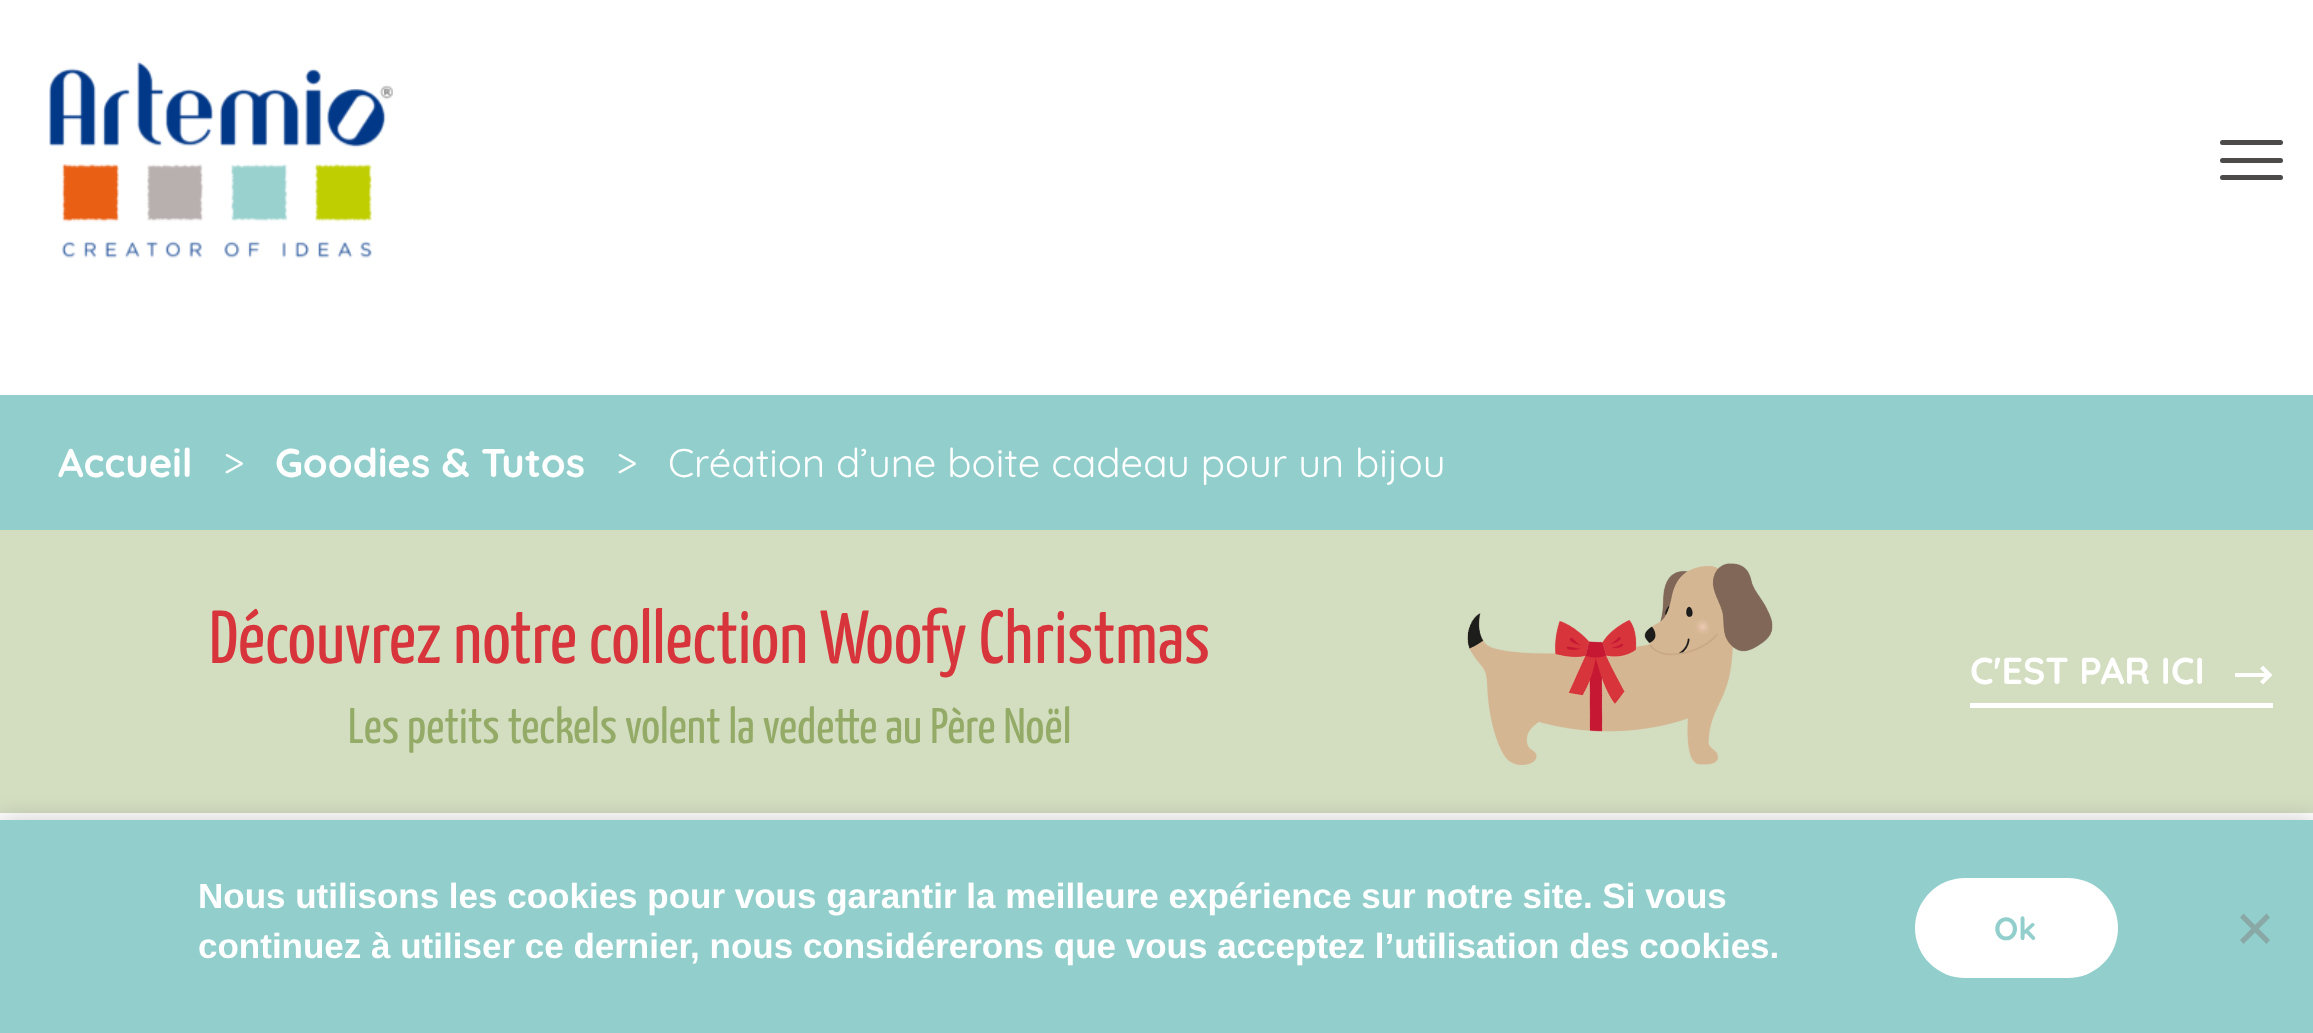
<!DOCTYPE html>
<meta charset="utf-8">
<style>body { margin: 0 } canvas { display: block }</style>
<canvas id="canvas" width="2313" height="1033"></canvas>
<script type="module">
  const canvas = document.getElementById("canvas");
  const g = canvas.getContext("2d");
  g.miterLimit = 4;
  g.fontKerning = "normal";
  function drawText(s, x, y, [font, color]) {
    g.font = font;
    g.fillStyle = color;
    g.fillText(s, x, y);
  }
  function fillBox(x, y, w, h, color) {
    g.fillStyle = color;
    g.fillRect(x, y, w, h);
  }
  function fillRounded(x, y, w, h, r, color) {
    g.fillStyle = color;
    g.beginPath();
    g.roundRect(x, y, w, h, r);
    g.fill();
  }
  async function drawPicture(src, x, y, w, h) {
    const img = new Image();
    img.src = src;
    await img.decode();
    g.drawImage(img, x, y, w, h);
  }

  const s1 = ["bold 40px Quicksand", "#FFFFFF"];
  const s2 = ["40px Quicksand", "#FFFFFF"];
  const s3 = ["75px Yanone Kaffeesatz", "#D7343B"];
  const s4 = ["50px Yanone Kaffeesatz", "#94AB68"];
  const s5 = ["bold 37.5px Quicksand", "#FFFFFF"];
  const s6 = ["bold 35px Liberation Sans", "#FFFFFF"];
  const s7 = ["bold 32px Quicksand", "#92CFCC"];

  fillBox(0, 0, 2313, 1033, "#FFFFFF");
  await drawPicture("pic1.png", 49, 61, 344, 197);
  fillRounded(2220, 158, 63, 5, 2.5, "#4C4B49");
  fillRounded(2220, 140, 63, 5, 2.5, "#4C4B49");
  fillRounded(2220, 175, 63, 5, 2.5, "#4C4B49");
  fillBox(0, 395, 2313, 135, "#92CFCC");
  drawText("Accueil", 58, 477, s1);
  drawText(">", 223, 477, s2);
  drawText("Goodies & Tutos", 275, 477, s1);
  drawText(">", 616, 477, s2);
  drawText("Création d’une boite cadeau pour un bijou", 668, 477, s2);
  fillBox(0, 530, 2313, 283, "#D3DDC0");
  await drawPicture("pic2.png", 1467, 563, 306, 202);
  drawText("Découvrez notre collection Woofy Christmas", 209, 663, s3);
  drawText("Les petits teckels volent la vedette au Père Noël", 348, 743, s4);
  drawText("C'EST PAR ICI", 1970, 684, s5);
  g.beginPath();
  g.moveTo(2263, 665.5);
  g.lineTo(2260, 668.5);
  g.lineTo(2264.5, 673);
  g.lineTo(2235, 673);
  g.lineTo(2235, 677);
  g.lineTo(2264.5, 677);
  g.lineTo(2260, 681.5);
  g.lineTo(2263, 684.5);
  g.lineTo(2272.5, 675);
  g.closePath();
  g.fill();
  fillBox(1970, 703, 303, 5, "#FFFFFF");
  g.fillStyle = "rgba(0, 0, 0, 0.2)";
  g.filter = "blur(12.5px)";
  g.beginPath();
  g.rect(0, 820, 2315, 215);
  g.fill();
  g.filter = "none";
  fillBox(0, 820, 2313, 213, "#92CFCC");
  drawText("Nous utilisons les cookies pour vous garantir la meilleure expérience sur notre site. Si vous", 198, 908, s6);
  drawText("continuez à utiliser ce dernier, nous considérerons que vous acceptez l’utilisation des cookies.", 198, 958, s6);
  fillRounded(1915, 878, 203, 100, 50, "#FFFFFF");
  drawText("Ok", 1994, 940, s7);
  g.fillStyle = "#89A8A6";
  g.beginPath();
  g.moveTo(2266.5, 913.5);
  g.lineTo(2270, 917.5);
  g.lineTo(2243.5, 944);
  g.lineTo(2240, 940);
  g.closePath();
  g.fill();
  g.beginPath();
  g.moveTo(2240, 917.5);
  g.lineTo(2243.5, 913.5);
  g.lineTo(2270, 940);
  g.lineTo(2266.5, 944);
  g.closePath();
  g.fill();
</script>
